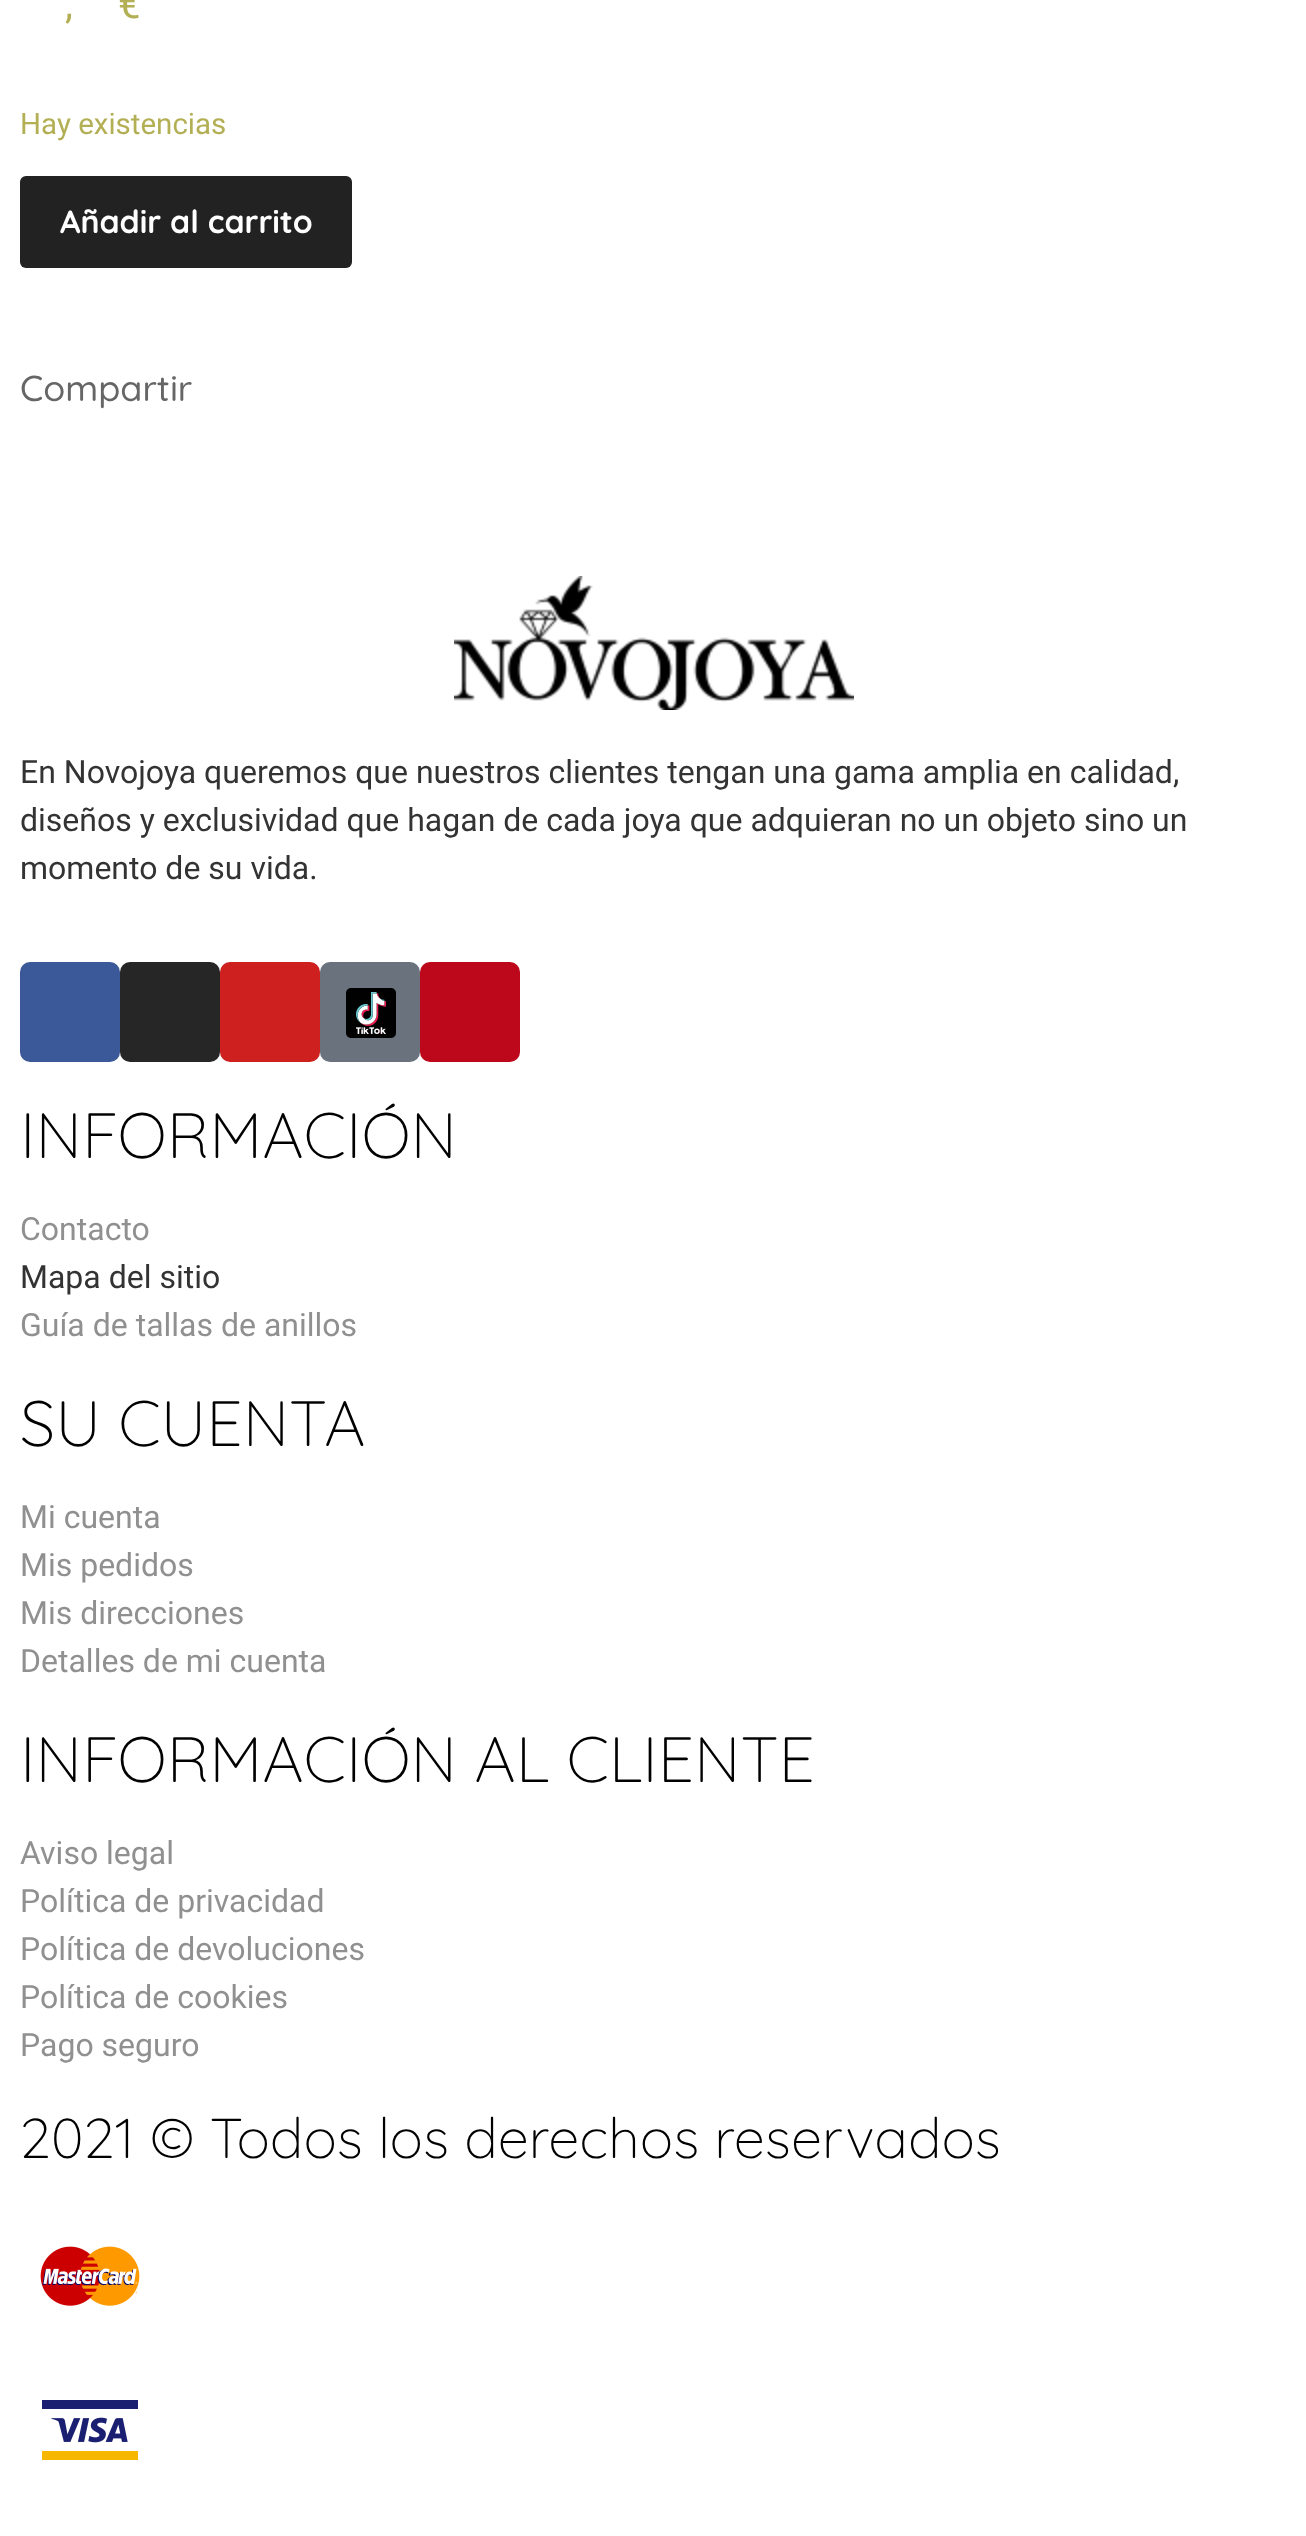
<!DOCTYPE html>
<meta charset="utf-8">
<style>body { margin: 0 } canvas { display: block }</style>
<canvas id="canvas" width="1306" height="2536"></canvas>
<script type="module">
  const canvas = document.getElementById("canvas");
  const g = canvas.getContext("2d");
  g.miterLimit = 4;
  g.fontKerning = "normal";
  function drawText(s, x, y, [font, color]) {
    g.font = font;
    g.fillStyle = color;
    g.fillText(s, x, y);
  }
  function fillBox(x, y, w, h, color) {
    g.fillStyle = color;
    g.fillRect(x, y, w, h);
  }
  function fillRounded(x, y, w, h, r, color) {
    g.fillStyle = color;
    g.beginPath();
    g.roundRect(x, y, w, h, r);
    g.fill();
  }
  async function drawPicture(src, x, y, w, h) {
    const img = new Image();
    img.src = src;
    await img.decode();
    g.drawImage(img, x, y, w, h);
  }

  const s1 = ["40px Roboto", "#B3AF54"];
  const s2 = ["29.5px Roboto", "#B3AF54"];
  const s3 = ["bold 32px Quicksand", "#FFFFFF"];
  const s4 = ["500 36px Quicksand", "#666666"];
  const s5 = ["32px Roboto", "#333333"];
  const s6 = ["300 64px Quicksand", "#000000"];
  const s7 = ["32px Roboto", "#909090"];
  const s8 = ["300 56px Quicksand", "#000000"];

  fillBox(0, 0, 1306, 2536, "#FFFFFF");
  drawText(",", 65, 18, s1);
  drawText("€", 118, 18, s1);
  drawText("Hay existencias", 20, 134, s2);
  fillRounded(20, 176, 332, 92, 6, "#222222");
  drawText("Añadir al carrito", 60, 233, s3);
  drawText("Compartir", 20, 401, s4);
  await drawPicture("pic1.png", 454, 576, 400, 134);
  drawText("En Novojoya queremos que nuestros clientes tengan una gama amplia en calidad,", 20, 783, s5);
  drawText("diseños y exclusividad que hagan de cada joya que adquieran no un objeto sino un", 20, 831, s5);
  drawText("momento de su vida.", 20, 879, s5);
  fillRounded(20, 962, 100, 100, 10, "#3B5998");
  fillRounded(120, 962, 100, 100, 10, "#262626");
  fillRounded(220, 962, 100, 100, 10, "#CD201F");
  fillRounded(320, 962, 100, 100, 10, "#69727D");
  await drawPicture("pic2.png", 346, 988, 50, 50);
  fillRounded(420, 962, 100, 100, 10, "#BD081C");
  drawText("INFORMACIÓN", 20, 1158, s6);
  drawText("Contacto", 20, 1240, s7);
  drawText("Mapa del sitio", 20, 1288, s5);
  drawText("Guía de tallas de anillos", 20, 1336, s7);
  drawText("SU CUENTA", 20, 1446, s6);
  drawText("Mi cuenta", 20, 1528, s7);
  drawText("Mis pedidos", 20, 1576, s7);
  drawText("Mis direcciones", 20, 1624, s7);
  drawText("Detalles de mi cuenta", 20, 1672, s7);
  drawText("INFORMACIÓN AL CLIENTE", 20, 1782, s6);
  drawText("Aviso legal", 20, 1864, s7);
  drawText("Política de privacidad", 20, 1912, s7);
  drawText("Política de devoluciones", 20, 1960, s7);
  drawText("Política de cookies", 20, 2008, s7);
  drawText("Pago seguro", 20, 2056, s7);
  drawText("2021 © Todos los derechos reservados", 20, 2158, s8);
  await drawPicture("pic3.png", 40, 2246, 100, 60);
  await drawPicture("pic4.png", 42, 2400, 96, 60);
</script>
